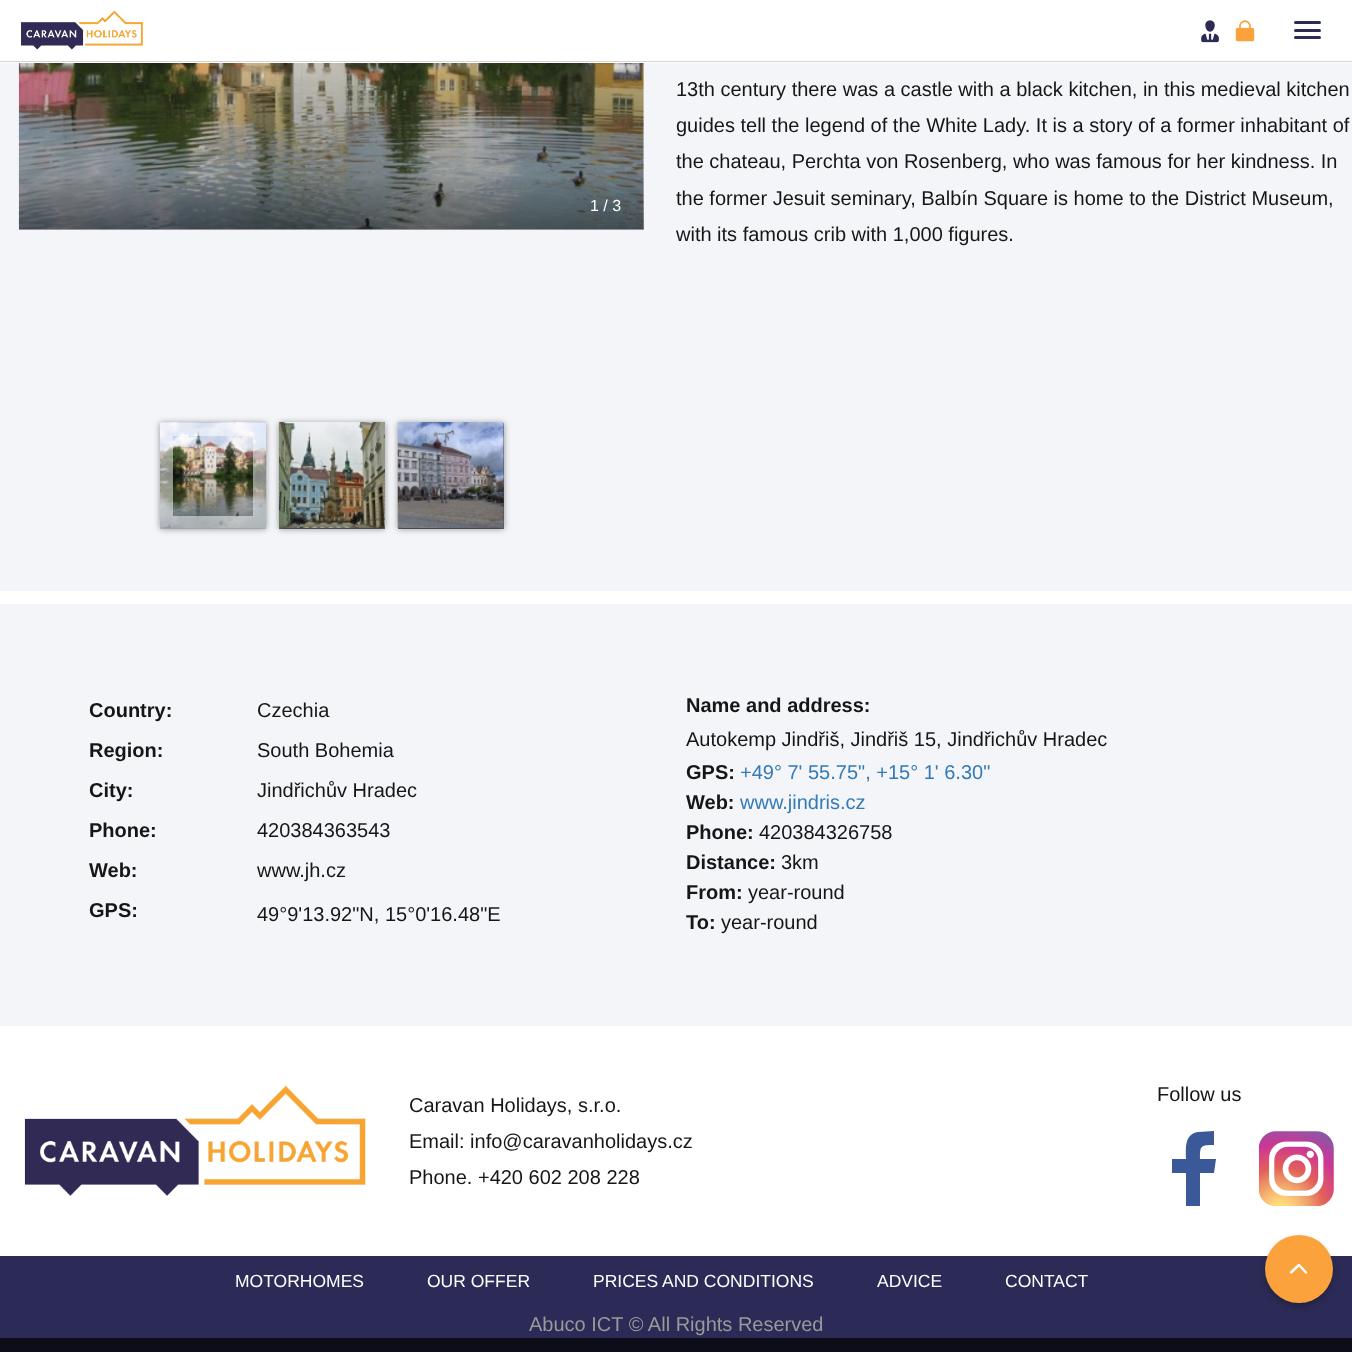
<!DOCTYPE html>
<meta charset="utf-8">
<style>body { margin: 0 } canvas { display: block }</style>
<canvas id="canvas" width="1352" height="1352"></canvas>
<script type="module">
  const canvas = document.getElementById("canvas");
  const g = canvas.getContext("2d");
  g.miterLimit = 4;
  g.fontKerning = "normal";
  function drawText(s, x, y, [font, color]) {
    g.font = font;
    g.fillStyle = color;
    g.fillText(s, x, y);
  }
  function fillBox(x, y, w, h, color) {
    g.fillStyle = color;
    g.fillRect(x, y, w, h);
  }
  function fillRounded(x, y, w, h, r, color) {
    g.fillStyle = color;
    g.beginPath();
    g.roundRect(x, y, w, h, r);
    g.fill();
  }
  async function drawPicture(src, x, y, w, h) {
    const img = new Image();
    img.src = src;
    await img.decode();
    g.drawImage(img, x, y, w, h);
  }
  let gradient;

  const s1 = ["16px Liberation Sans", "#FFFFFF"];
  const s2 = ["20px Liberation Sans", "#161616"];
  const s3 = ["bold 20px Liberation Sans", "#161616"];
  const s4 = ["20px Liberation Sans", "#337AB7"];
  const s5 = ["17.5px Liberation Sans", "#FFFFFF"];
  const s6 = ["20px Liberation Sans", "#999999"];

  fillBox(0, 0, 1352, 1352, "#FFFFFF");
  fillBox(0, 61, 1352, 1, "#D4D4D4");
  await drawPicture("pic1.png", 21, 10, 122, 40);
  await drawPicture("pic2.png", 1201, 20, 18, 23);
  await drawPicture("pic3.png", 1235, 20, 20, 22);
  fillRounded(1294, 21, 27, 3, 1.5, "#2C2B57");
  fillRounded(1294, 29, 27, 3, 1.5, "#2C2B57");
  fillRounded(1294, 36, 27, 3, 1.5, "#2C2B57");
  fillBox(0, 63, 1352, 528, "#F4F5F9");
  await drawPicture("pic4.png", 18, 63, 626, 167);
  gradient = g.createLinearGradient(331, 175, 331, 230);
  gradient.addColorStop(0, "rgba(0, 0, 0, 0)");
  gradient.addColorStop(1, "rgba(0, 0, 0, 0.3)");
  g.fillStyle = gradient;
  g.fillRect(19, 179, 625, 51);
  drawText("1 / 3", 590, 211, s1);
  g.fillStyle = "rgba(0, 0, 0, 0.4)";
  g.filter = "blur(3px)";
  g.beginPath();
  g.rect(160, 423, 106, 106);
  g.fill();
  g.filter = "none";
  fillBox(160, 528, 106, 1, "rgba(0, 0, 0, 0.5)");
  g.save();
  g.beginPath();
  g.rect(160, 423, 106, 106);
  g.clip();
  g.fillStyle = "rgba(0, 0, 0, 0.4)";
  g.filter = "blur(3px)";
  g.beginPath();
  g.rect(160, 423, 106, 106);
  g.fill();
  g.filter = "none";
  g.restore();
  await drawPicture("pic5.png", 160, 422, 107, 107);
  g.strokeStyle = "rgba(255, 255, 255, 0.5)";
  g.lineWidth = 13;
  g.strokeRect(166.5, 429.5, 93, 93);
  g.fillStyle = "rgba(0, 0, 0, 0.4)";
  g.filter = "blur(3px)";
  g.beginPath();
  g.rect(279, 423, 106, 106);
  g.fill();
  g.filter = "none";
  fillBox(279, 528, 106, 1, "rgba(0, 0, 0, 0.5)");
  g.save();
  g.beginPath();
  g.rect(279, 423, 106, 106);
  g.clip();
  g.fillStyle = "rgba(0, 0, 0, 0.4)";
  g.filter = "blur(3px)";
  g.beginPath();
  g.rect(279, 423, 106, 106);
  g.fill();
  g.filter = "none";
  g.restore();
  await drawPicture("pic6.png", 278, 422, 107, 107);
  g.fillStyle = "rgba(0, 0, 0, 0.4)";
  g.filter = "blur(3px)";
  g.beginPath();
  g.rect(398, 423, 106, 106);
  g.fill();
  g.filter = "none";
  fillBox(398, 423, 106, 106, "rgba(0, 0, 0, 0.5)");
  g.save();
  g.beginPath();
  g.rect(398, 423, 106, 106);
  g.clip();
  g.fillStyle = "rgba(0, 0, 0, 0.4)";
  g.filter = "blur(3px)";
  g.beginPath();
  g.rect(398, 423, 106, 106);
  g.fill();
  g.filter = "none";
  g.restore();
  await drawPicture("pic7.png", 397, 422, 107, 106);
  drawText("13th century there was a castle with a black kitchen, in this medieval kitchen", 676, 96, s2);
  drawText("guides tell the legend of the White Lady. It is a story of a former inhabitant of", 676, 132, s2);
  drawText("the chateau, Perchta von Rosenberg, who was famous for her kindness. In", 676, 168, s2);
  drawText("the former Jesuit seminary, Balbín Square is home to the District Museum,", 676, 205, s2);
  drawText("with its famous crib with 1,000 figures.", 676, 241, s2);
  fillBox(0, 604, 1352, 422, "#F4F5F9");
  drawText("Country:", 89, 717, s3);
  drawText("Czechia", 257, 717, s2);
  drawText("Region:", 89, 757, s3);
  drawText("South Bohemia", 257, 757, s2);
  drawText("City:", 89, 797, s3);
  drawText("Jindřichův Hradec", 257, 797, s2);
  drawText("Phone:", 89, 837, s3);
  drawText("420384363543", 257, 837, s2);
  drawText("Web:", 89, 877, s3);
  drawText("www.jh.cz", 257, 877, s2);
  drawText("GPS:", 89, 917, s3);
  drawText("49°9'13.92\"N, 15°0'16.48\"E", 257, 921, s2);
  drawText("Name and address:", 686, 712, s3);
  drawText("Autokemp Jindřiš, Jindřiš 15, Jindřichův Hradec", 686, 746, s2);
  drawText("GPS:", 686, 779, s3);
  drawText("+49° 7' 55.75\", +15° 1' 6.30\"", 740, 779, s4);
  drawText("Web:", 686, 809, s3);
  drawText("www.jindris.cz", 740, 809, s4);
  drawText("Phone:", 686, 839, s3);
  drawText("420384326758", 759, 839, s2);
  drawText("Distance:", 686, 869, s3);
  drawText("3km", 781, 869, s2);
  drawText("From:", 686, 899, s3);
  drawText("year-round", 748, 899, s2);
  drawText("To:", 686, 929, s3);
  drawText("year-round", 721, 929, s2);
  await drawPicture("pic8.png", 24, 1085, 342, 111);
  drawText("Follow us", 1157, 1101, s2);
  g.fillStyle = "#3B5998";
  g.beginPath();
  g.moveTo(1200, 1206);
  g.lineTo(1200, 1173);
  g.lineTo(1214, 1173);
  g.lineTo(1216, 1159);
  g.lineTo(1200, 1159);
  g.bezierCurveTo(1200, 1146, 1200, 1145, 1214, 1145);
  g.lineTo(1214, 1131);
  g.lineTo(1198, 1132);
  g.bezierCurveTo(1184, 1134, 1186, 1149, 1186, 1159);
  g.lineTo(1172, 1159);
  g.lineTo(1172, 1173);
  g.lineTo(1186, 1173);
  g.lineTo(1186, 1206);
  g.closePath();
  g.fill();
  await drawPicture("pic9.png", 1259, 1131, 75, 75);
  drawText("Caravan Holidays, s.r.o.", 409, 1112, s2);
  drawText("Email: info@caravanholidays.cz", 409, 1148, s2);
  drawText("Phone. +420 602 208 228", 409, 1184, s2);
  fillBox(0, 1256, 1352, 82, "#2C2B57");
  drawText("MOTORHOMES", 235, 1287, s5);
  drawText("OUR OFFER", 427, 1287, s5);
  drawText("PRICES AND CONDITIONS", 593, 1287, s5);
  drawText("ADVICE", 877, 1287, s5);
  drawText("CONTACT", 1005, 1287, s5);
  drawText("Abuco ICT © All Rights Reserved", 529, 1331, s6);
  g.fillStyle = "rgba(0, 0, 0, 0.25)";
  g.filter = "blur(3px)";
  g.beginPath();
  g.roundRect(1265, 1239, 68, 67, 33.5);
  g.fill();
  g.filter = "none";
  g.fillStyle = "#FBA23C";
  g.beginPath();
  g.arc(1299, 1269, 34, 0, Math.PI * 2);
  g.fill();
  g.beginPath();
  g.moveTo(1306, 1272.5);
  g.lineTo(1299, 1265);
  g.lineTo(1291, 1272.5);
  g.strokeStyle = "#FFFFFF";
  g.lineWidth = 2.5;
  g.lineCap = "round";
  g.lineJoin = "round";
  g.stroke();
  fillBox(0, 1338, 1352, 14, "#0D0D1A");
</script>
